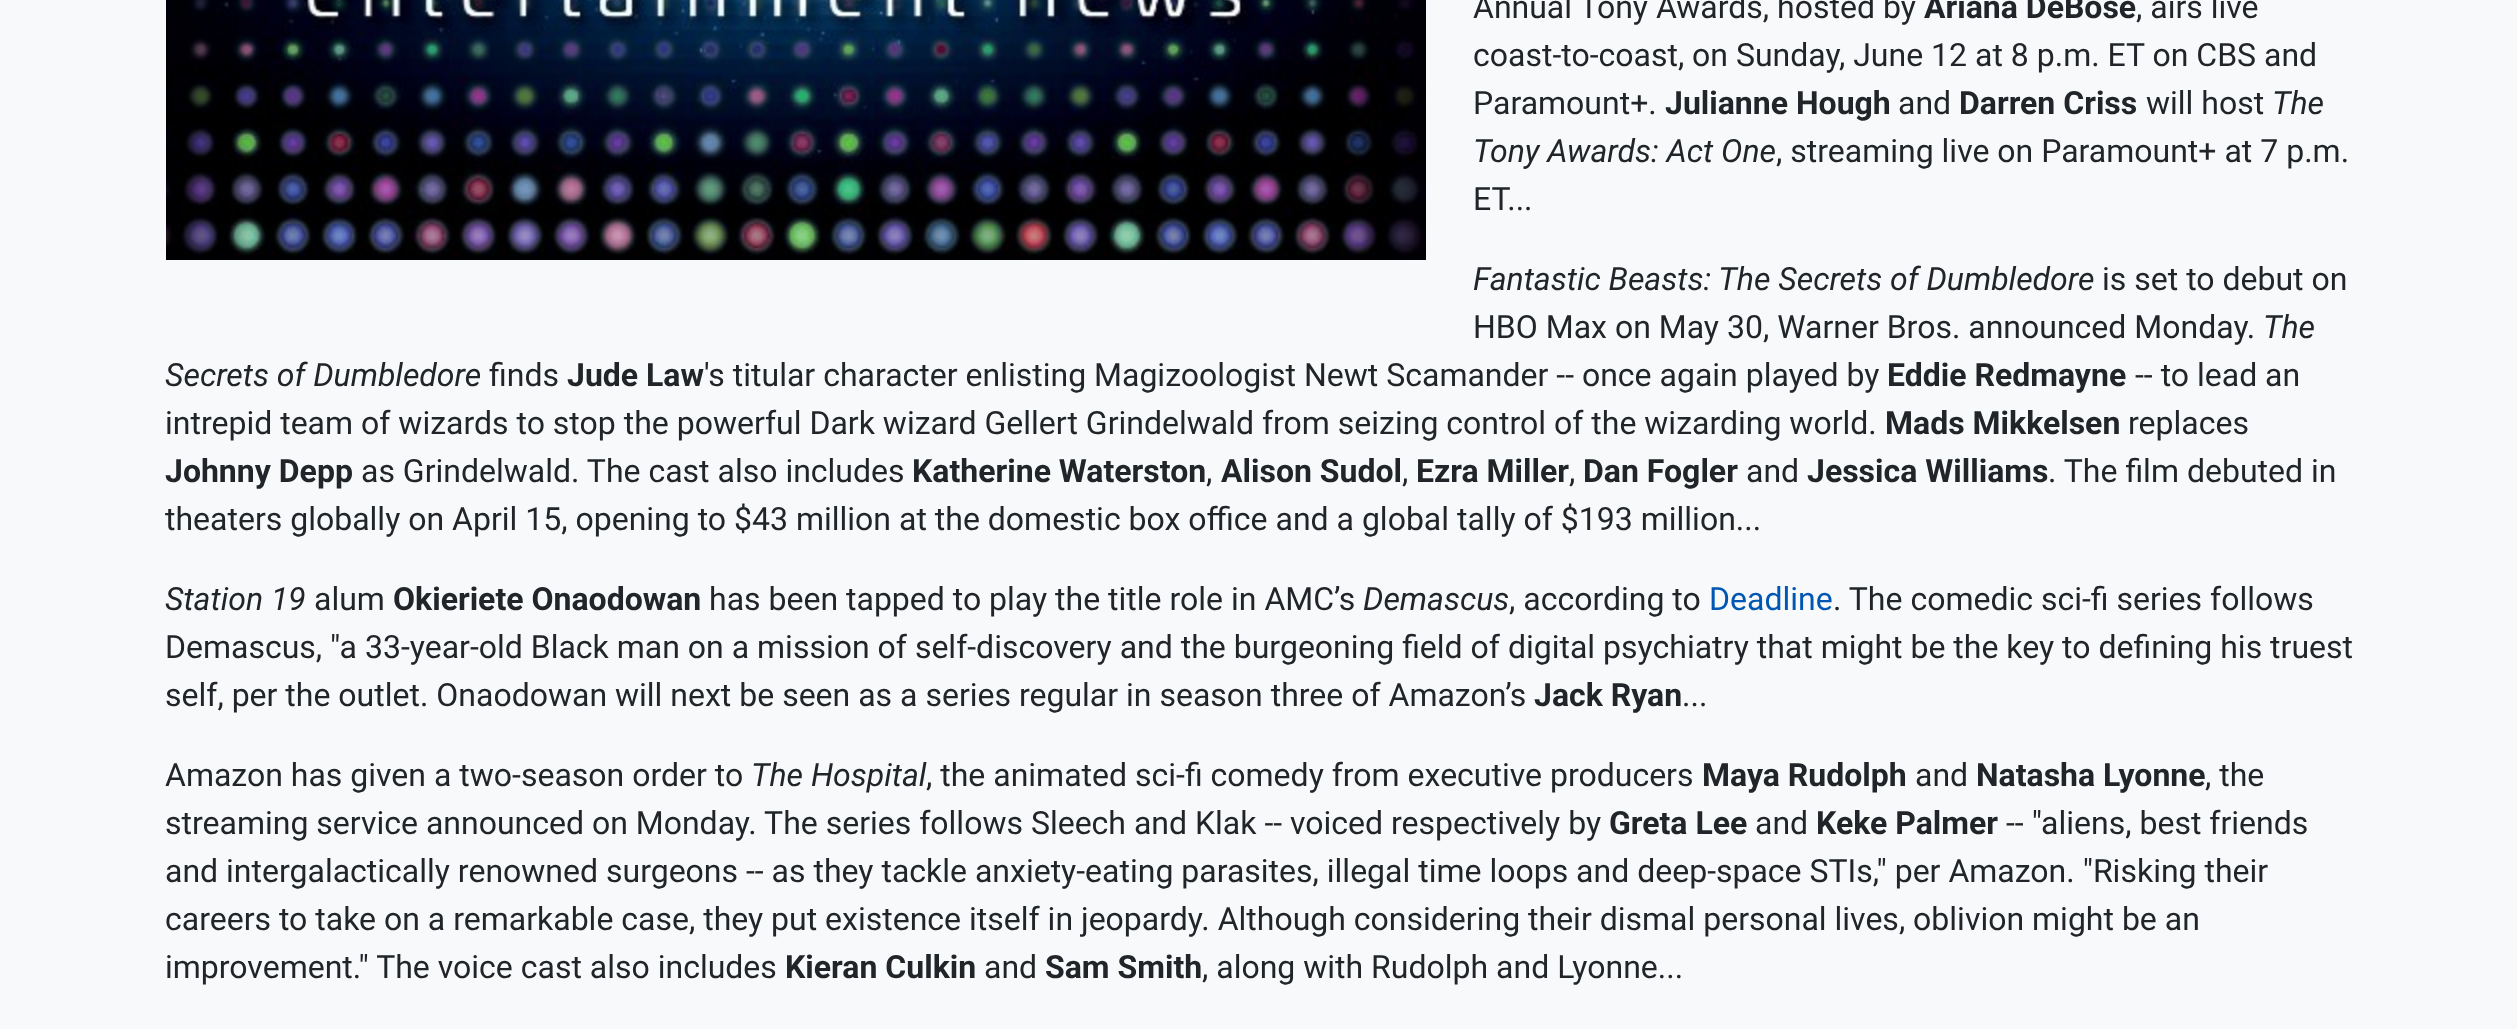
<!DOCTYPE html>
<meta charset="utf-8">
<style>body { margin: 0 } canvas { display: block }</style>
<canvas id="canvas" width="2517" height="1029"></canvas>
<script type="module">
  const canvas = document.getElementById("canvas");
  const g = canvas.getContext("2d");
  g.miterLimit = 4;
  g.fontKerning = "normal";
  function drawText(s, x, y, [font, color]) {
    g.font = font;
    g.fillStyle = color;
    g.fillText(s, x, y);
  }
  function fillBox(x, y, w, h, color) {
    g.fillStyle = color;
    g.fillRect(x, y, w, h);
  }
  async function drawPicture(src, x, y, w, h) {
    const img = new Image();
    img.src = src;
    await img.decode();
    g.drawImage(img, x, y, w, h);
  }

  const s1 = ["32px Roboto", "#212529"];
  const s2 = ["bold 32px Roboto", "#212529"];
  const s3 = ["italic 32px Roboto", "#212529"];
  const s4 = ["32px Roboto", "#0056B3"];

  fillBox(0, 0, 2517, 1029, "#F8F9FA");
  drawText("Annual Tony Awards, hosted by", 1473, 18, s1);
  drawText("Ariana DeBose", 1924, 18, s2);
  drawText(", airs live", 2136, 18, s1);
  drawText("coast-to-coast, on Sunday, June 12 at 8 p.m. ET on CBS and", 1473, 66, s1);
  drawText("Paramount+.", 1473, 114, s1);
  drawText("Julianne Hough", 1665, 114, s2);
  drawText("and", 1898, 114, s1);
  drawText("Darren Criss", 1959, 114, s2);
  drawText("will host", 2146, 114, s1);
  drawText("The", 2272, 114, s3);
  drawText("Tony Awards: Act One", 1473, 162, s3);
  drawText(", streaming live on Paramount+ at 7 p.m.", 1776, 162, s1);
  drawText("ET...", 1473, 210, s1);
  drawText("Fantastic Beasts: The Secrets of Dumbledore", 1473, 290, s3);
  drawText("is set to debut on", 2102, 290, s1);
  drawText("HBO Max on May 30, Warner Bros. announced Monday.", 1473, 338, s1);
  drawText("The", 2263, 338, s3);
  drawText("Secrets of Dumbledore", 165, 386, s3);
  drawText("finds", 489, 386, s1);
  drawText("Jude Law", 567, 386, s2);
  drawText("'s titular character enlisting Magizoologist Newt Scamander -- once again played by", 704, 386, s1);
  drawText("Eddie Redmayne", 1887, 386, s2);
  drawText("-- to lead an", 2135, 386, s1);
  drawText("intrepid team of wizards to stop the powerful Dark wizard Gellert Grindelwald from seizing control of the wizarding world.", 165, 434, s1);
  drawText("Mads Mikkelsen", 1885, 434, s2);
  drawText("replaces", 2128, 434, s1);
  drawText("Johnny Depp", 165, 482, s2);
  drawText("as Grindelwald. The cast also includes", 361, 482, s1);
  drawText("Katherine Waterston", 912, 482, s2);
  drawText(",", 1206, 482, s1);
  drawText("Alison Sudol", 1221, 482, s2);
  drawText(",", 1402, 482, s1);
  drawText("Ezra Miller", 1416, 482, s2);
  drawText(",", 1569, 482, s1);
  drawText("Dan Fogler", 1583, 482, s2);
  drawText("and", 1746, 482, s1);
  drawText("Jessica Williams", 1807, 482, s2);
  drawText(". The film debuted in", 2048, 482, s1);
  drawText("theaters globally on April 15, opening to $43 million at the domestic box office and a global tally of $193 million...", 165, 530, s1);
  drawText("Station 19", 165, 610, s3);
  drawText("alum", 314, 610, s1);
  drawText("Okieriete Onaodowan", 393, 610, s2);
  drawText("has been tapped to play the title role in AMC’s", 709, 610, s1);
  drawText("Demascus", 1363, 610, s3);
  drawText(", according to", 1509, 610, s1);
  drawText("Deadline", 1709, 610, s4);
  drawText(". The comedic sci-fi series follows", 1833, 610, s1);
  drawText("Demascus, \"a 33-year-old Black man on a mission of self-discovery and the burgeoning field of digital psychiatry that might be the key to defining his truest", 165, 658, s1);
  drawText("self, per the outlet. Onaodowan will next be seen as a series regular in season three of Amazon’s", 165, 706, s1);
  drawText("Jack Ryan", 1534, 706, s2);
  drawText("...", 1682, 706, s1);
  drawText("Amazon has given a two-season order to", 165, 786, s1);
  drawText("The Hospital", 751, 786, s3);
  drawText(", the animated sci-fi comedy from executive producers", 926, 786, s1);
  drawText("Maya Rudolph", 1702, 786, s2);
  drawText("and", 1915, 786, s1);
  drawText("Natasha Lyonne", 1976, 786, s2);
  drawText(", the", 2205, 786, s1);
  drawText("streaming service announced on Monday. The series follows Sleech and Klak -- voiced respectively by", 165, 834, s1);
  drawText("Greta Lee", 1609, 834, s2);
  drawText("and", 1755, 834, s1);
  drawText("Keke Palmer", 1816, 834, s2);
  drawText("-- \"aliens, best friends", 2006, 834, s1);
  drawText("and intergalactically renowned surgeons -- as they tackle anxiety-eating parasites, illegal time loops and deep-space STIs,\" per Amazon. \"Risking their", 165, 882, s1);
  drawText("careers to take on a remarkable case, they put existence itself in jeopardy. Although considering their dismal personal lives, oblivion might be an", 165, 930, s1);
  drawText("improvement.\" The voice cast also includes", 165, 978, s1);
  drawText("Kieran Culkin", 785, 978, s2);
  drawText("and", 984, 978, s1);
  drawText("Sam Smith", 1045, 978, s2);
  drawText(", along with Rudolph and Lyonne...", 1202, 978, s1);
  await drawPicture("pic1.png", 166, 0, 1260, 260);
</script>
